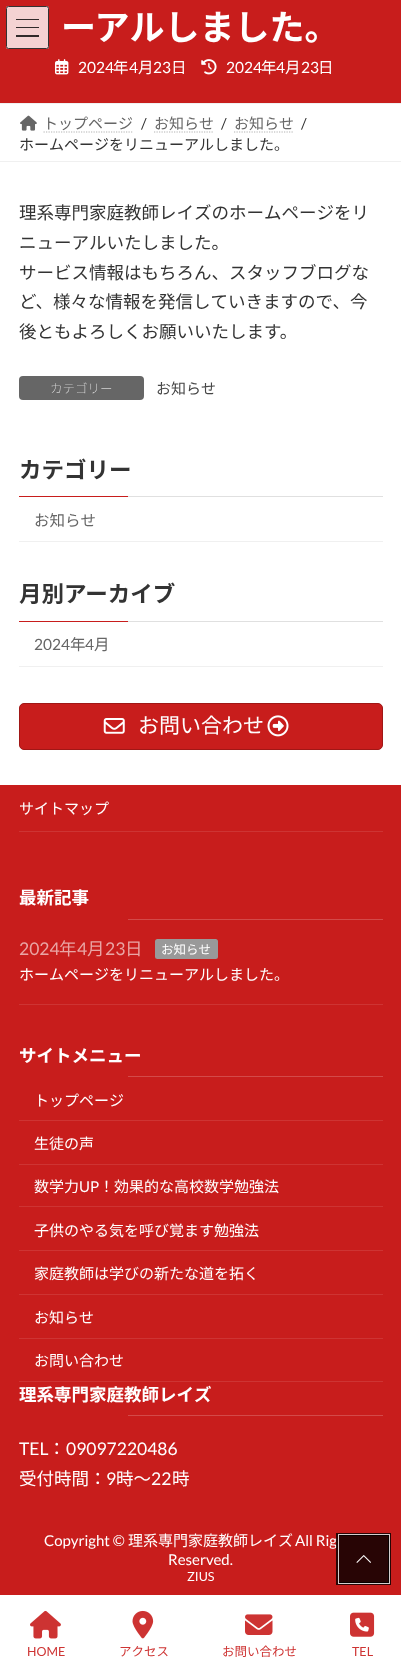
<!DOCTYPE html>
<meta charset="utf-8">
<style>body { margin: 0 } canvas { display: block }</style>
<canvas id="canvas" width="401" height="1672"></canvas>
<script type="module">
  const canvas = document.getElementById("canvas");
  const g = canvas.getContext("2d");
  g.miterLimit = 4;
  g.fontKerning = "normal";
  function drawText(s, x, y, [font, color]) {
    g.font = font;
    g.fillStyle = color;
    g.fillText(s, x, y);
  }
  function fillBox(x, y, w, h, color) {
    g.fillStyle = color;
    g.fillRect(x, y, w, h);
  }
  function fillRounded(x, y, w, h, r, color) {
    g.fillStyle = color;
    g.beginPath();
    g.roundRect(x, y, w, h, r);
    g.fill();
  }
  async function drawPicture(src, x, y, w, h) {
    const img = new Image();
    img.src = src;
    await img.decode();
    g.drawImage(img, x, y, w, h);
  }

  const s1 = ["bold 35px Noto Sans JP", "#FFFFFF"];
  const s2 = ["15.5px Lato", "#FFFFFF"];
  const s3 = ["15.5px Noto Sans JP", "#FFFFFF"];
  const s4 = ["15px Noto Sans JP", "#666666"];
  const s5 = ["15px Lato", "#333333"];
  const s6 = ["15px Noto Sans JP", "#333333"];
  const s7 = ["17.5px Noto Sans JP", "#333333"];
  const s8 = ["100 12.5px Noto Sans JP", "#FFFFFF"];
  const s9 = ["15px Noto Sans JP", "#464646"];
  const s10 = ["bold 22.5px Noto Sans JP", "#333333"];
  const s11 = ["15.5px Noto Sans JP", "#666666"];
  const s12 = ["15.5px Lato", "#666666"];
  const s13 = ["21px Noto Sans JP", "#FFFFFF"];
  const s14 = ["15px Noto Sans JP", "#FFFFFF"];
  const s15 = ["bold 17.5px Noto Sans JP", "#FFFFFF"];
  const s16 = ["17.5px Lato", "#E9A5A4"];
  const s17 = ["17.5px Noto Sans JP", "#E9A5A4"];
  const s18 = ["12.5px Noto Sans JP", "#FFFFFF"];
  const s19 = ["15px Lato", "#FFFFFF"];
  const s20 = ["17.5px Lato", "#FFFFFF"];
  const s21 = ["17.5px Noto Sans JP", "#FFFFFF"];
  const s22 = ["12.5px Lato", "#FFFFFF"];
  const s23 = ["12.5px Lato", "#CE3433"];
  const s24 = ["12.5px Noto Sans JP", "#CE3433"];

  fillBox(0, 0, 401, 1672, "#FFFFFF");
  fillBox(0, 0, 401, 103, "#C81D1C");
  fillRounded(6, 6, 43, 43, 2.5, "#F4D2D2");
  fillBox(16, 19, 23, 1, "#312A2A");
  fillBox(16, 27, 23, 1, "#312A2A");
  fillBox(16, 35, 23, 2, "#312A2A");
  g.beginPath();
  g.roundRect(6.5, 6.5, 42, 42, 2);
  g.strokeStyle = "#333333";
  g.stroke();
  drawText("ーアルしました。", 61, 40, s1);
  await drawPicture("pic1.png", 55, 59, 14, 16);
  drawText("2024", 78, 73, s2);
  drawText("年", 113, 73, s3);
  drawText("4", 129, 73, s2);
  drawText("月", 138, 73, s3);
  drawText("23", 153, 73, s2);
  drawText("日", 171, 73, s3);
  await drawPicture("pic2.png", 201, 59, 16, 16);
  drawText("2024", 226, 73, s2);
  drawText("年", 261, 73, s3);
  drawText("4", 276, 73, s2);
  drawText("月", 285, 73, s3);
  drawText("23", 301, 73, s2);
  drawText("日", 318, 73, s3);
  fillBox(0, 103, 401, 1, "#F0F0F0");
  fillBox(0, 161, 401, 1, "#F0F0F0");
  await drawPicture("pic3.png", 20, 115, 17, 16);
  drawText("トップページ", 43, 129, s4);
  g.beginPath();
  g.moveTo(43.5, 132);
  g.lineTo(133, 132);
  g.strokeStyle = "#B3B3B3";
  g.lineWidth = 1.2;
  g.setLineDash([1.25, 1.25]);
  g.stroke();
  drawText("/", 141, 129, s5);
  drawText("お知らせ", 154, 129, s4);
  g.beginPath();
  g.moveTo(154, 132);
  g.lineTo(213.5, 132);
  g.stroke();
  drawText("/", 221, 129, s5);
  drawText("お知らせ", 234, 129, s4);
  g.beginPath();
  g.moveTo(234, 132);
  g.lineTo(294, 132);
  g.stroke();
  drawText("/", 301, 129, s5);
  drawText("ホームページをリニューアルしました。", 19, 150, s6);
  drawText("理系専門家庭教師レイズのホームページをリ", 19, 219, s7);
  drawText("ニューアルいたしました。", 19, 249, s7);
  drawText("サービス情報はもちろん、スタッフブログな", 19, 279, s7);
  drawText("ど、様々な情報を発信していきますので、今", 19, 308, s7);
  drawText("後ともよろしくお願いいたします。", 19, 338, s7);
  fillRounded(19, 376, 125, 24, 4, "#666666");
  drawText("カテゴリー", 50, 393, s8);
  drawText("お知らせ", 156, 394, s9);
  fillBox(128, 496, 255, 1, "#E0E0E0");
  drawText("カテゴリー", 19, 478, s10);
  fillBox(19, 496, 109, 1, "#C81D1C");
  fillBox(19, 541, 364, 1, "#F0F0F0");
  drawText("お知らせ", 34, 526, s11);
  fillBox(128, 621, 255, 1, "#E0E0E0");
  drawText("月別アーカイブ", 19, 602, s10);
  fillBox(19, 621, 109, 1, "#C81D1C");
  fillBox(19, 666, 364, 1, "#F0F0F0");
  drawText("2024", 34, 650, s12);
  drawText("年", 70, 650, s11);
  drawText("4", 85, 650, s12);
  drawText("月", 94, 650, s11);
  g.fillStyle = "#C81D1C";
  g.beginPath();
  g.roundRect(19.5, 703.5, 363, 46, 4.5);
  g.fill();
  g.strokeStyle = "#A01716";
  g.lineWidth = 1;
  g.setLineDash([]);
  g.stroke();
  await drawPicture("pic4.png", 103, 718, 22, 16);
  drawText("お問い合わせ", 138, 733, s13);
  await drawPicture("pic5.png", 267, 715, 22, 22);
  fillBox(0, 785, 401, 810, "#C81D1C");
  fillBox(19, 831, 364, 1, "#CE3433");
  drawText("サイトマップ", 19, 814, s14);
  fillBox(128, 919, 255, 1, "#D34A49");
  drawText("最新記事", 19, 904, s15);
  fillBox(19, 1004, 364, 1, "#CE3433");
  drawText("2024", 19, 955, s16);
  drawText("年", 59, 955, s17);
  drawText("4", 77, 955, s16);
  drawText("月", 87, 955, s17);
  drawText("23", 105, 955, s16);
  drawText("日", 125, 955, s17);
  fillRounded(155, 939, 63, 20, 2.5, "#999999");
  drawText("お知らせ", 161, 954, s18);
  drawText("ホームページをリニューアルしました。", 19, 980, s14);
  fillBox(128, 1076, 255, 1, "#D34A49");
  drawText("サイトメニュー", 19, 1062, s15);
  fillBox(19, 1120, 364, 1, "#CE3433");
  drawText("トップページ", 34, 1106, s14);
  fillBox(19, 1164, 364, 1, "#CE3433");
  drawText("生徒の声", 34, 1149, s14);
  fillBox(19, 1206, 364, 1, "#CE3433");
  drawText("数学力", 34, 1192, s14);
  drawText("UP", 79, 1192, s19);
  drawText("！効果的な高校数学勉強法", 99, 1192, s14);
  fillBox(19, 1250, 364, 1, "#CE3433");
  drawText("子供のやる気を呼び覚ます勉強法", 34, 1236, s14);
  fillBox(19, 1294, 364, 1, "#CE3433");
  drawText("家庭教師は学びの新たな道を拓く", 34, 1279, s14);
  fillBox(19, 1338, 364, 1, "#CE3433");
  drawText("お知らせ", 34, 1323, s14);
  fillBox(19, 1381, 364, 1, "#CE3433");
  drawText("お問い合わせ", 34, 1366, s14);
  fillBox(128, 1415, 255, 1, "#D34A49");
  drawText("理系専門家庭教師レイズ", 19, 1401, s15);
  drawText("TEL", 19, 1455, s20);
  drawText("：", 48, 1455, s21);
  drawText("09097220486", 66, 1455, s20);
  drawText("受付時間：", 19, 1485, s21);
  drawText("9", 106, 1485, s20);
  drawText("時～", 116, 1485, s21);
  drawText("22", 151, 1485, s20);
  drawText("時", 172, 1485, s21);
  drawText("Copyright ©", 44, 1546, s19);
  drawText("理系専門家庭教師レイズ", 128, 1546, s14);
  drawText("All Rig", 295, 1546, s19);
  drawText("Reserved.", 168, 1565, s19);
  drawText("ZIUS", 187, 1581, s22);
  g.strokeStyle = "rgba(0, 0, 0, 0.8)";
  g.lineWidth = 3;
  g.strokeRect(337.5, 1534.5, 52, 49);
  g.strokeStyle = "rgba(255, 255, 255, 0.8)";
  g.lineWidth = 1;
  g.strokeRect(338.5, 1534.5, 51, 49);
  fillBox(339, 1535, 50, 48, "rgba(0, 0, 0, 0.8)");
  await drawPicture("pic6.png", 356, 1555, 15, 8);
  await drawPicture("pic7.png", 30, 1610, 31, 29);
  drawText("HOME", 27, 1656, s23);
  await drawPicture("pic8.png", 132, 1610, 22, 29);
  drawText("アクセス", 119, 1656, s24);
  await drawPicture("pic9.png", 245, 1614, 28, 21);
  drawText("お問い合わせ", 222, 1656, s24);
  await drawPicture("pic10.png", 350, 1612, 25, 25);
  drawText("TEL", 352, 1656, s23);
</script>
